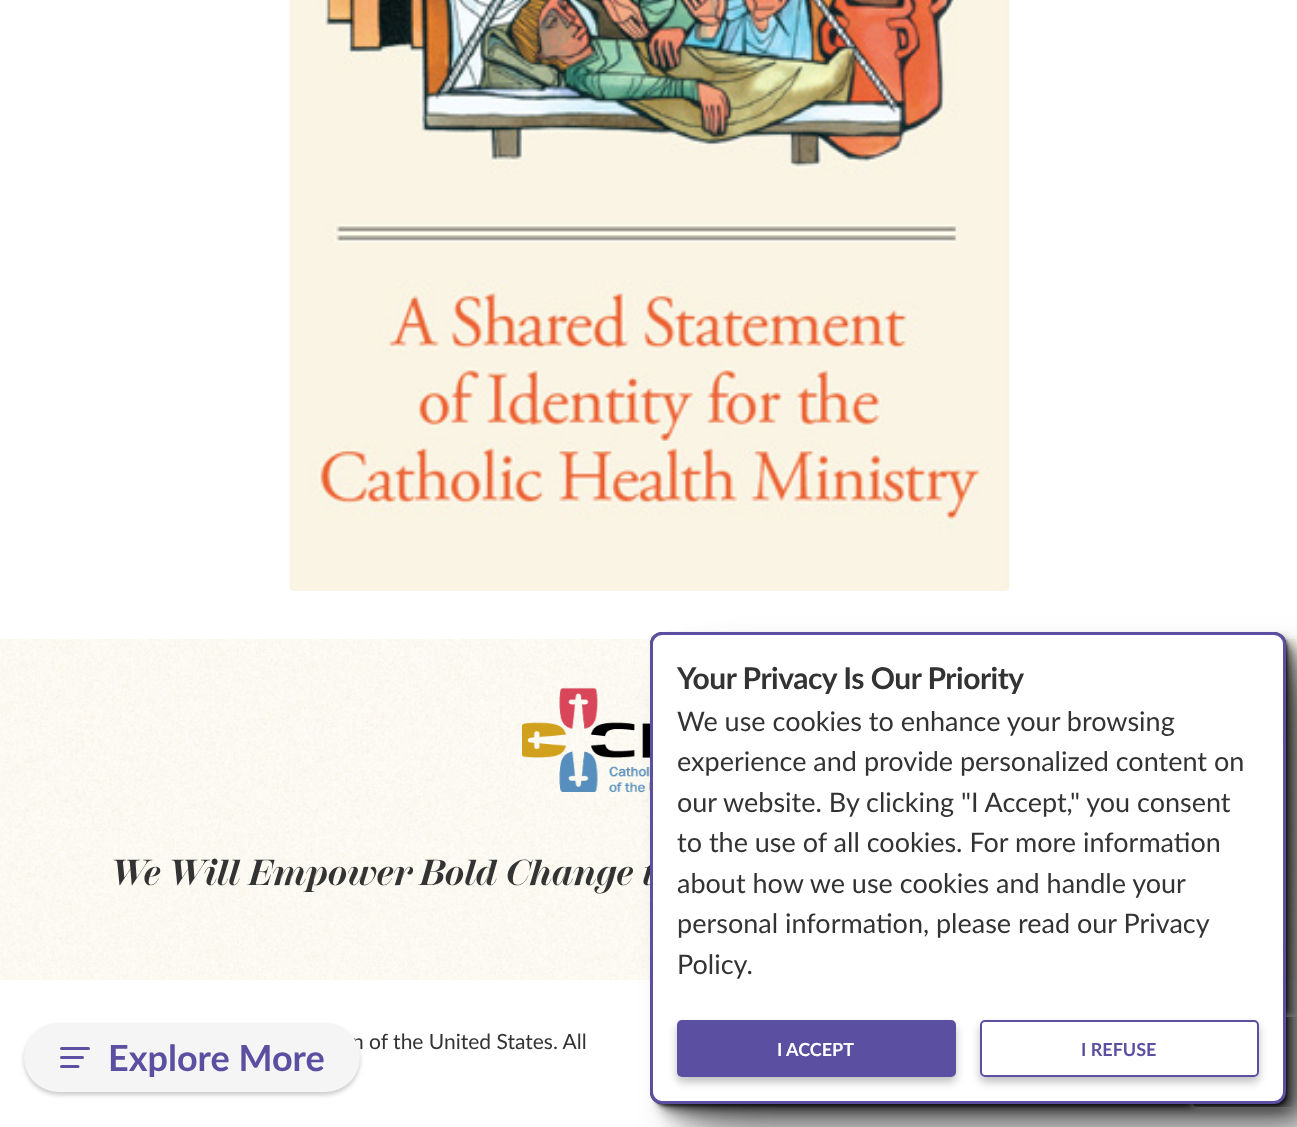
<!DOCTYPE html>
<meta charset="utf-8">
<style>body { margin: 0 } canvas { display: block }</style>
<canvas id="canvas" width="1297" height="1127"></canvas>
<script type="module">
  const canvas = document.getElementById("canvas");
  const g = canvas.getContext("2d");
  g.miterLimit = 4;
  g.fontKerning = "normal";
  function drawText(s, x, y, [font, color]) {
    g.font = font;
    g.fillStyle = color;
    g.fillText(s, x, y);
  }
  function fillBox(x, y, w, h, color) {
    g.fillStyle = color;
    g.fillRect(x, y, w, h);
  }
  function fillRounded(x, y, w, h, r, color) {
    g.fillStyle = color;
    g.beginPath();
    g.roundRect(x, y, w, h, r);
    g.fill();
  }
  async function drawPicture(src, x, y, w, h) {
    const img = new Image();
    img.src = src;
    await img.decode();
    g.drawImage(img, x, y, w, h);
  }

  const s1 = ["italic bold 36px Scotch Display", "#333333"];
  const s2 = ["21px Lato", "#333333"];
  const s3 = ["bold 36px Lato", "#5B4FA1"];
  const s4 = ["bold 30px Lato", "#333333"];
  const s5 = ["27px Lato", "#333333"];
  const s6 = ["bold 18px Lato", "#FFFFFF"];
  const s7 = ["bold 18px Lato", "#5B4FA1"];

  fillBox(0, 0, 1297, 1127, "#FFFFFF");
  await drawPicture("pic1.png", 289, 0, 721, 591);
  fillBox(0, 977, 1297, 3, "#FDF9F0");
  await drawPicture("pic2.png", 0, 639, 1297, 340);
  await drawPicture("pic3.png", 522, 687, 128, 105);
  drawText("We Will Empower Bold Change t", 110, 885, s1);
  drawText("n of the United States. All", 352, 1049, s2);
  g.fillStyle = "rgba(0, 0, 0, 0.2)";
  g.filter = "blur(2px)";
  g.beginPath();
  g.roundRect(24, 1026, 336, 69, 34.5);
  g.fill();
  g.filter = "none";
  fillRounded(24, 1023, 336, 69, 34.5, "#F5F5F5");
  g.beginPath();
  g.moveTo(61.5, 1048.5);
  g.lineTo(88.5, 1048.5);
  g.moveTo(61.5, 1057.5);
  g.lineTo(82.5, 1057.5);
  g.moveTo(61.5, 1066.5);
  g.lineTo(78, 1066.5);
  g.strokeStyle = "#5B4FA1";
  g.lineWidth = 3;
  g.lineCap = "round";
  g.stroke();
  drawText("Explore More", 108, 1071, s3);
  g.fillStyle = "rgba(0, 0, 0, 0.21)";
  g.filter = "blur(32px)";
  g.beginPath();
  g.roundRect(705, 684, 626, 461, 6);
  g.fill();
  g.filter = "none";
  g.fillStyle = "rgba(0, 0, 0, 0.25)";
  g.filter = "blur(21px)";
  g.beginPath();
  g.roundRect(687, 668, 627, 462, 8);
  g.fill();
  g.filter = "none";
  g.fillStyle = "rgba(0, 0, 0, 0.29)";
  g.filter = "blur(13px)";
  g.beginPath();
  g.roundRect(674, 654, 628, 465, 8);
  g.fill();
  g.filter = "none";
  g.fillStyle = "rgba(0, 0, 0, 0.34)";
  g.filter = "blur(7.5px)";
  g.beginPath();
  g.roundRect(665, 647, 630, 465, 9);
  g.fill();
  g.filter = "none";
  g.fillStyle = "rgba(0, 0, 0, 0.38)";
  g.filter = "blur(4.5px)";
  g.beginPath();
  g.roundRect(659, 641, 631, 468, 9);
  g.fill();
  g.filter = "none";
  g.fillStyle = "rgba(0, 0, 0, 0.42)";
  g.filter = "blur(2.5px)";
  g.beginPath();
  g.roundRect(656, 636, 631, 470, 11);
  g.fill();
  g.filter = "none";
  g.fillStyle = "rgba(0, 0, 0, 0.46)";
  g.filter = "blur(1px)";
  g.beginPath();
  g.roundRect(653, 635, 634, 471, 12);
  g.fill();
  g.filter = "none";
  g.fillStyle = "rgba(0, 0, 0, 0.5)";
  g.filter = "blur(0.5px)";
  g.beginPath();
  g.roundRect(650, 632, 636, 472, 12);
  g.fill();
  g.filter = "none";
  g.fillStyle = "rgba(0, 0, 0, 0.29)";
  g.filter = "blur(1.5px)";
  g.beginPath();
  g.roundRect(657, 639, 626, 462, 6);
  g.fill();
  g.filter = "none";
  g.fillStyle = "rgba(0, 0, 0, 0.4)";
  g.filter = "blur(0.5px)";
  g.beginPath();
  g.roundRect(653, 635, 631, 468, 9);
  g.fill();
  g.filter = "none";
  g.fillStyle = "rgba(0, 0, 0, 0.52)";
  g.filter = "blur(0.5px)";
  g.beginPath();
  g.roundRect(650, 632, 636, 472, 12);
  g.fill();
  g.filter = "none";
  g.save();
  g.beginPath();
  g.moveTo(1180, 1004);
  g.lineTo(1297, 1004);
  g.lineTo(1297, 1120);
  g.lineTo(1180, 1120);
  g.closePath();
  g.moveTo(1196, 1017);
  g.lineTo(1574, 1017);
  g.bezierCurveTo(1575.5, 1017, 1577, 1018.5, 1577, 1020);
  g.lineTo(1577, 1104);
  g.bezierCurveTo(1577, 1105.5, 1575.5, 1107, 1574, 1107);
  g.lineTo(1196, 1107);
  g.bezierCurveTo(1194.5, 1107, 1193, 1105.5, 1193, 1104);
  g.lineTo(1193, 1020);
  g.bezierCurveTo(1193, 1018.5, 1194.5, 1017, 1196, 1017);
  g.closePath();
  g.clip("evenodd");
  g.fillStyle = "#808080";
  g.filter = "blur(4px)";
  g.beginPath();
  g.roundRect(1193, 1017, 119, 90, 3);
  g.fill();
  g.filter = "none";
  g.restore();
  g.fillStyle = "#FFFFFF";
  g.beginPath();
  g.roundRect(651.5, 633.5, 633, 469, 10.5);
  g.fill();
  g.stroke();
  g.letterSpacing = "-0.5px";
  drawText("Your Privacy Is Our Priority", 677, 689, s4);
  g.letterSpacing = "0px";
  drawText("We use cookies to enhance your browsing", 677, 731, s5);
  drawText("experience and provide personalized content on", 677, 771, s5);
  drawText("our website. By clicking \"I Accept,\" you consent", 677, 812, s5);
  drawText("to the use of all cookies. For more information", 677, 852, s5);
  drawText("about how we use cookies and handle your", 677, 893, s5);
  drawText("personal information, please read our Privacy", 677, 933, s5);
  drawText("Policy.", 677, 974, s5);
  g.fillStyle = "rgba(0, 0, 0, 0.25)";
  g.filter = "blur(4.5px)";
  g.beginPath();
  g.roundRect(677, 1025, 279, 57, 5);
  g.fill();
  g.filter = "none";
  fillRounded(677, 1020, 279, 57, 5, "#5B4FA1");
  drawText("I ACCEPT", 777, 1056, s6);
  g.save();
  g.beginPath();
  g.moveTo(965, 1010);
  g.lineTo(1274, 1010);
  g.lineTo(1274, 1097);
  g.lineTo(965, 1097);
  g.closePath();
  g.moveTo(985, 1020);
  g.lineTo(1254, 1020);
  g.bezierCurveTo(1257, 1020, 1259, 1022, 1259, 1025);
  g.lineTo(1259, 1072);
  g.bezierCurveTo(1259, 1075, 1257, 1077, 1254, 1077);
  g.lineTo(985, 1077);
  g.bezierCurveTo(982, 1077, 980, 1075, 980, 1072);
  g.lineTo(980, 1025);
  g.bezierCurveTo(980, 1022, 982, 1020, 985, 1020);
  g.closePath();
  g.clip("evenodd");
  g.fillStyle = "rgba(0, 0, 0, 0.25)";
  g.filter = "blur(4.5px)";
  g.beginPath();
  g.roundRect(980, 1025, 279, 57, 5);
  g.fill();
  g.filter = "none";
  g.restore();
  g.beginPath();
  g.roundRect(981, 1021, 277, 55, 4);
  g.lineWidth = 2;
  g.stroke();
  drawText("I REFUSE", 1081, 1056, s7);
</script>
